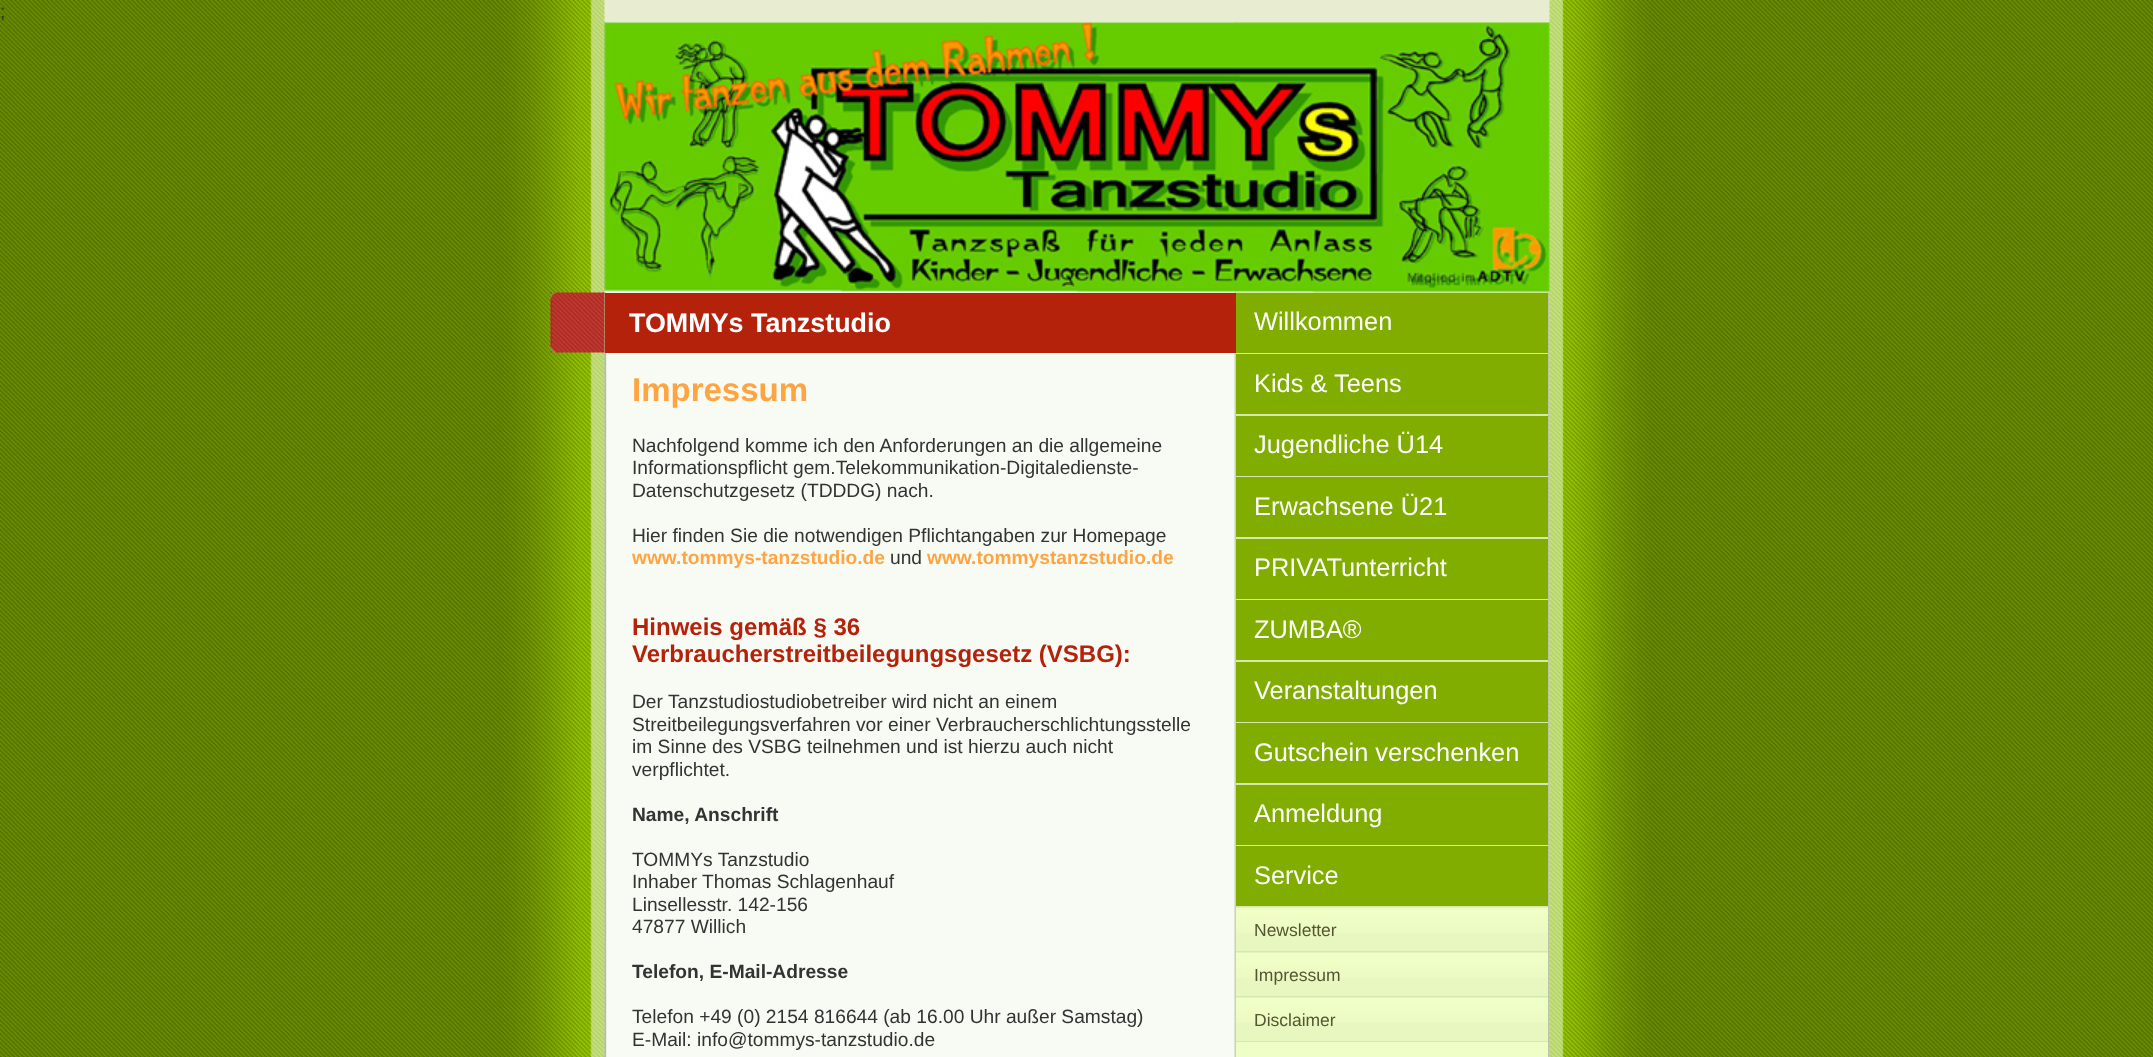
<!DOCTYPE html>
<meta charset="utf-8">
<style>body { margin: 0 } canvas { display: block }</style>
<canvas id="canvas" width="2153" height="1057"></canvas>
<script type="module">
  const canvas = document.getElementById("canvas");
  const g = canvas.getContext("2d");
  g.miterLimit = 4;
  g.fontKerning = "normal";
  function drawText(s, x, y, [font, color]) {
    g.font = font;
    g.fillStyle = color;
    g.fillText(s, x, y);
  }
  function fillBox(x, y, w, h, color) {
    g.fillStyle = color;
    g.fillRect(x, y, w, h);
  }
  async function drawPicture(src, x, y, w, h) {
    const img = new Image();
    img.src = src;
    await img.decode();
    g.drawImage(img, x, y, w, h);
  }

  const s1 = ["19.2px Liberation Sans", "#333333"];
  const s2 = ["bold 26.9px Liberation Sans", "#FFFFFF"];
  const s3 = ["bold 33px Liberation Sans", "#FEA443"];
  const s4 = ["bold 19.2px Liberation Sans", "#FEA443"];
  const s5 = ["bold 24px Liberation Sans", "#B5220C"];
  const s6 = ["bold 19.2px Liberation Sans", "#333333"];
  const s7 = ["25.4px Liberation Sans", "#FFFFFF"];
  const s8 = ["17.5px Liberation Sans", "#555533"];

  fillBox(0, 0, 2153, 1057, "#FFFFFF");
  await drawPicture("pic1.png", 0, 0, 2153, 1057);
  drawText(";", 0, 18, s1);
  await drawPicture("pic2.png", 604, 22, 946, 1035);
  await drawPicture("pic3.png", 604, 22, 946, 271);
  await drawPicture("pic4.png", 550, 292, 55, 61);
  fillBox(605, 293, 631, 60, "#B5220C");
  drawText("TOMMYs Tanzstudio", 629, 332, s2);
  drawText("Impressum", 632, 401, s3);
  drawText("Nachfolgend komme ich den Anforderungen an die allgemeine", 632, 452, s1);
  drawText("Informationspflicht gem.Telekommunikation-Digitaledienste-", 632, 474, s1);
  drawText("Datenschutzgesetz (TDDDG) nach.", 632, 497, s1);
  drawText("Hier finden Sie die notwendigen Pflichtangaben zur Homepage", 632, 542, s1);
  drawText("www.tommys-tanzstudio.de", 632, 564, s4);
  drawText("und", 890, 564, s1);
  drawText("www.tommystanzstudio.de", 927, 564, s4);
  drawText("Hinweis gemäß § 36", 632, 635, s5);
  drawText("Verbraucherstreitbeilegungsgesetz (VSBG):", 632, 662, s5);
  drawText("Der Tanzstudiostudiobetreiber wird nicht an einem", 632, 708, s1);
  drawText("Streitbeilegungsverfahren vor einer Verbraucherschlichtungsstelle", 632, 731, s1);
  drawText("im Sinne des VSBG teilnehmen und ist hierzu auch nicht", 632, 753, s1);
  drawText("verpflichtet.", 632, 776, s1);
  drawText("Name, Anschrift", 632, 821, s6);
  drawText("TOMMYs Tanzstudio", 632, 866, s1);
  drawText("Inhaber Thomas Schlagenhauf", 632, 888, s1);
  drawText("Linsellesstr. 142-156", 632, 911, s1);
  drawText("47877 Willich", 632, 933, s1);
  drawText("Telefon, E-Mail-Adresse", 632, 978, s6);
  drawText("Telefon +49 (0) 2154 816644 (ab 16.00 Uhr außer Samstag)", 632, 1023, s1);
  drawText("E-Mail: info@tommys-tanzstudio.de", 632, 1046, s1);
  fillBox(1236, 293, 312, 60, "#81AC00");
  fillBox(1236, 353, 312, 1, "#D5E8AD");
  drawText("Willkommen", 1254, 330, s7);
  fillBox(1236, 354, 312, 60, "#81AC00");
  fillBox(1236, 414, 312, 2, "#D5E8AD");
  drawText("Kids & Teens", 1254, 392, s7);
  fillBox(1236, 416, 312, 60, "#81AC00");
  fillBox(1236, 476, 312, 1, "#D5E8AD");
  drawText("Jugendliche Ü14", 1254, 453, s7);
  fillBox(1236, 477, 312, 60, "#81AC00");
  fillBox(1236, 537, 312, 2, "#D5E8AD");
  drawText("Erwachsene Ü21", 1254, 515, s7);
  fillBox(1236, 539, 312, 60, "#81AC00");
  fillBox(1236, 599, 312, 1, "#D5E8AD");
  drawText("PRIVATunterricht", 1254, 576, s7);
  fillBox(1236, 600, 312, 60, "#81AC00");
  fillBox(1236, 660, 312, 2, "#D5E8AD");
  drawText("ZUMBA®", 1254, 638, s7);
  fillBox(1236, 662, 312, 60, "#81AC00");
  fillBox(1236, 722, 312, 1, "#D5E8AD");
  drawText("Veranstaltungen", 1254, 699, s7);
  fillBox(1236, 723, 312, 60, "#81AC00");
  fillBox(1236, 783, 312, 2, "#D5E8AD");
  drawText("Gutschein verschenken", 1254, 761, s7);
  fillBox(1236, 785, 312, 60, "#81AC00");
  fillBox(1236, 845, 312, 1, "#D5E8AD");
  drawText("Anmeldung", 1254, 822, s7);
  fillBox(1236, 846, 312, 60, "#81AC00");
  fillBox(1236, 906, 312, 2, "#D5E8AD");
  drawText("Service", 1254, 884, s7);
  fillBox(1236, 933, 312, 18, "#E8F6BF");
  await drawPicture("pic5.png", 1236, 907, 312, 26);
  fillBox(1236, 951, 312, 2, "#D5E8AD");
  drawText("Newsletter", 1254, 936, s8);
  fillBox(1236, 978, 312, 18, "#E8F6BF");
  await drawPicture("pic6.png", 1236, 952, 312, 26);
  fillBox(1236, 996, 312, 2, "#D5E8AD");
  drawText("Impressum", 1254, 981, s8);
  fillBox(1236, 1023, 312, 18, "#E8F6BF");
  await drawPicture("pic7.png", 1236, 997, 312, 26);
  fillBox(1236, 1041, 312, 1, "#D5E8AD");
  drawText("Disclaimer", 1254, 1026, s8);
  fillBox(1236, 1042, 312, 15, "#EFFEC6");
</script>
